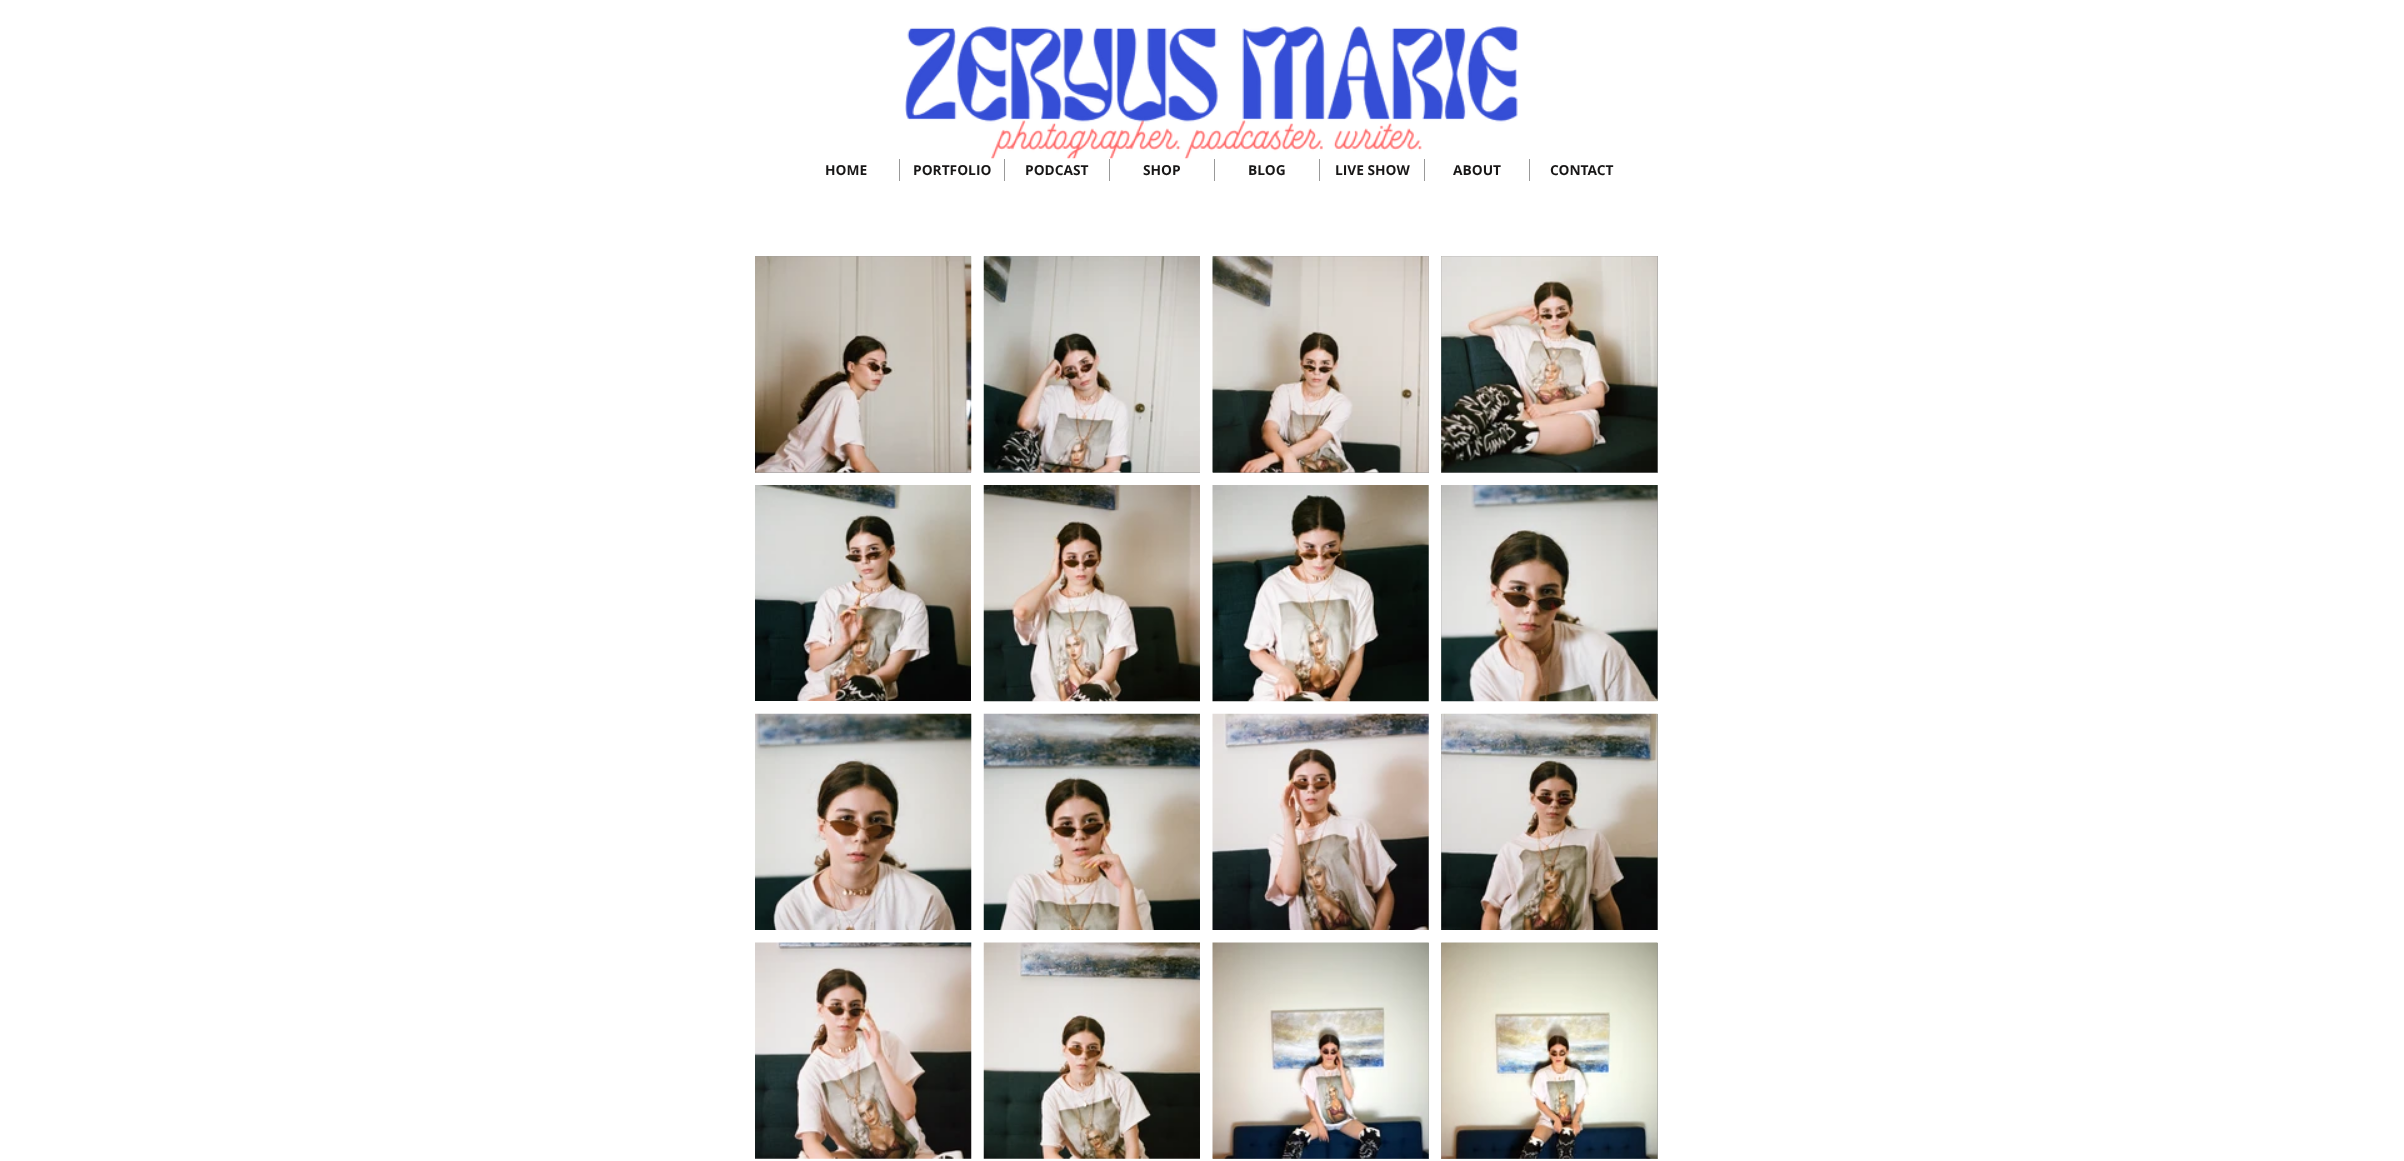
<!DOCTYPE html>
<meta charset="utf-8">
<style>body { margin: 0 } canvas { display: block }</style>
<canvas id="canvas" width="2404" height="1161"></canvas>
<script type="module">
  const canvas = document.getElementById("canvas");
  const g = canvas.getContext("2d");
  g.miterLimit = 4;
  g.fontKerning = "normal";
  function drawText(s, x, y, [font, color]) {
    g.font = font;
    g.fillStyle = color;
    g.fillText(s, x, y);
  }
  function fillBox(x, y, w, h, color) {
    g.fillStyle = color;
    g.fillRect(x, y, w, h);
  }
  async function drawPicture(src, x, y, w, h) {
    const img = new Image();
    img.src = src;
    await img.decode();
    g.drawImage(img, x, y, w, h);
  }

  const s1 = ["bold 13.75px Open Sans", "#181717"];

  fillBox(0, 0, 2404, 1161, "#FFFFFF");
  await drawPicture("pic1.png", 905, 26, 613, 133);
  drawText("HOME", 825, 175, s1);
  fillBox(899, 159, 1, 22, "#999999");
  drawText("PORTFOLIO", 913, 175, s1);
  fillBox(1004, 159, 1, 22, "#999999");
  drawText("PODCAST", 1025, 175, s1);
  fillBox(1109, 159, 1, 22, "#999999");
  drawText("SHOP", 1143, 175, s1);
  fillBox(1214, 159, 1, 22, "#999999");
  drawText("BLOG", 1248, 175, s1);
  fillBox(1319, 159, 1, 22, "#999999");
  drawText("LIVE SHOW", 1335, 175, s1);
  fillBox(1424, 159, 1, 22, "#999999");
  drawText("ABOUT", 1453, 175, s1);
  fillBox(1529, 159, 1, 22, "#999999");
  drawText("CONTACT", 1550, 175, s1);
  fillBox(755, 256, 216, 217, "#999999");
  await drawPicture("pic2.png", 755, 256, 217, 217);
  fillBox(984, 256, 216, 217, "#999999");
  await drawPicture("pic3.png", 983, 256, 217, 217);
  fillBox(1213, 256, 216, 217, "#999999");
  await drawPicture("pic4.png", 1212, 256, 217, 217);
  fillBox(1441, 256, 217, 217, "#999999");
  await drawPicture("pic5.png", 1441, 256, 217, 217);
  await drawPicture("pic6.png", 755, 485, 216, 216);
  await drawPicture("pic7.png", 983, 485, 217, 217);
  await drawPicture("pic8.png", 1212, 485, 217, 217);
  fillBox(1441, 485, 217, 216, "#999999");
  await drawPicture("pic9.png", 1441, 485, 217, 217);
  await drawPicture("pic10.png", 755, 713, 217, 217);
  await drawPicture("pic11.png", 983, 713, 217, 217);
  await drawPicture("pic12.png", 1212, 713, 217, 217);
  fillBox(1441, 714, 217, 216, "#999999");
  await drawPicture("pic13.png", 1441, 713, 217, 217);
  await drawPicture("pic14.png", 755, 942, 217, 217);
  await drawPicture("pic15.png", 983, 942, 217, 217);
  fillBox(1213, 943, 216, 216, "#999999");
  await drawPicture("pic16.png", 1212, 942, 217, 217);
  fillBox(1441, 943, 217, 216, "#999999");
  await drawPicture("pic17.png", 1441, 942, 217, 217);
</script>
